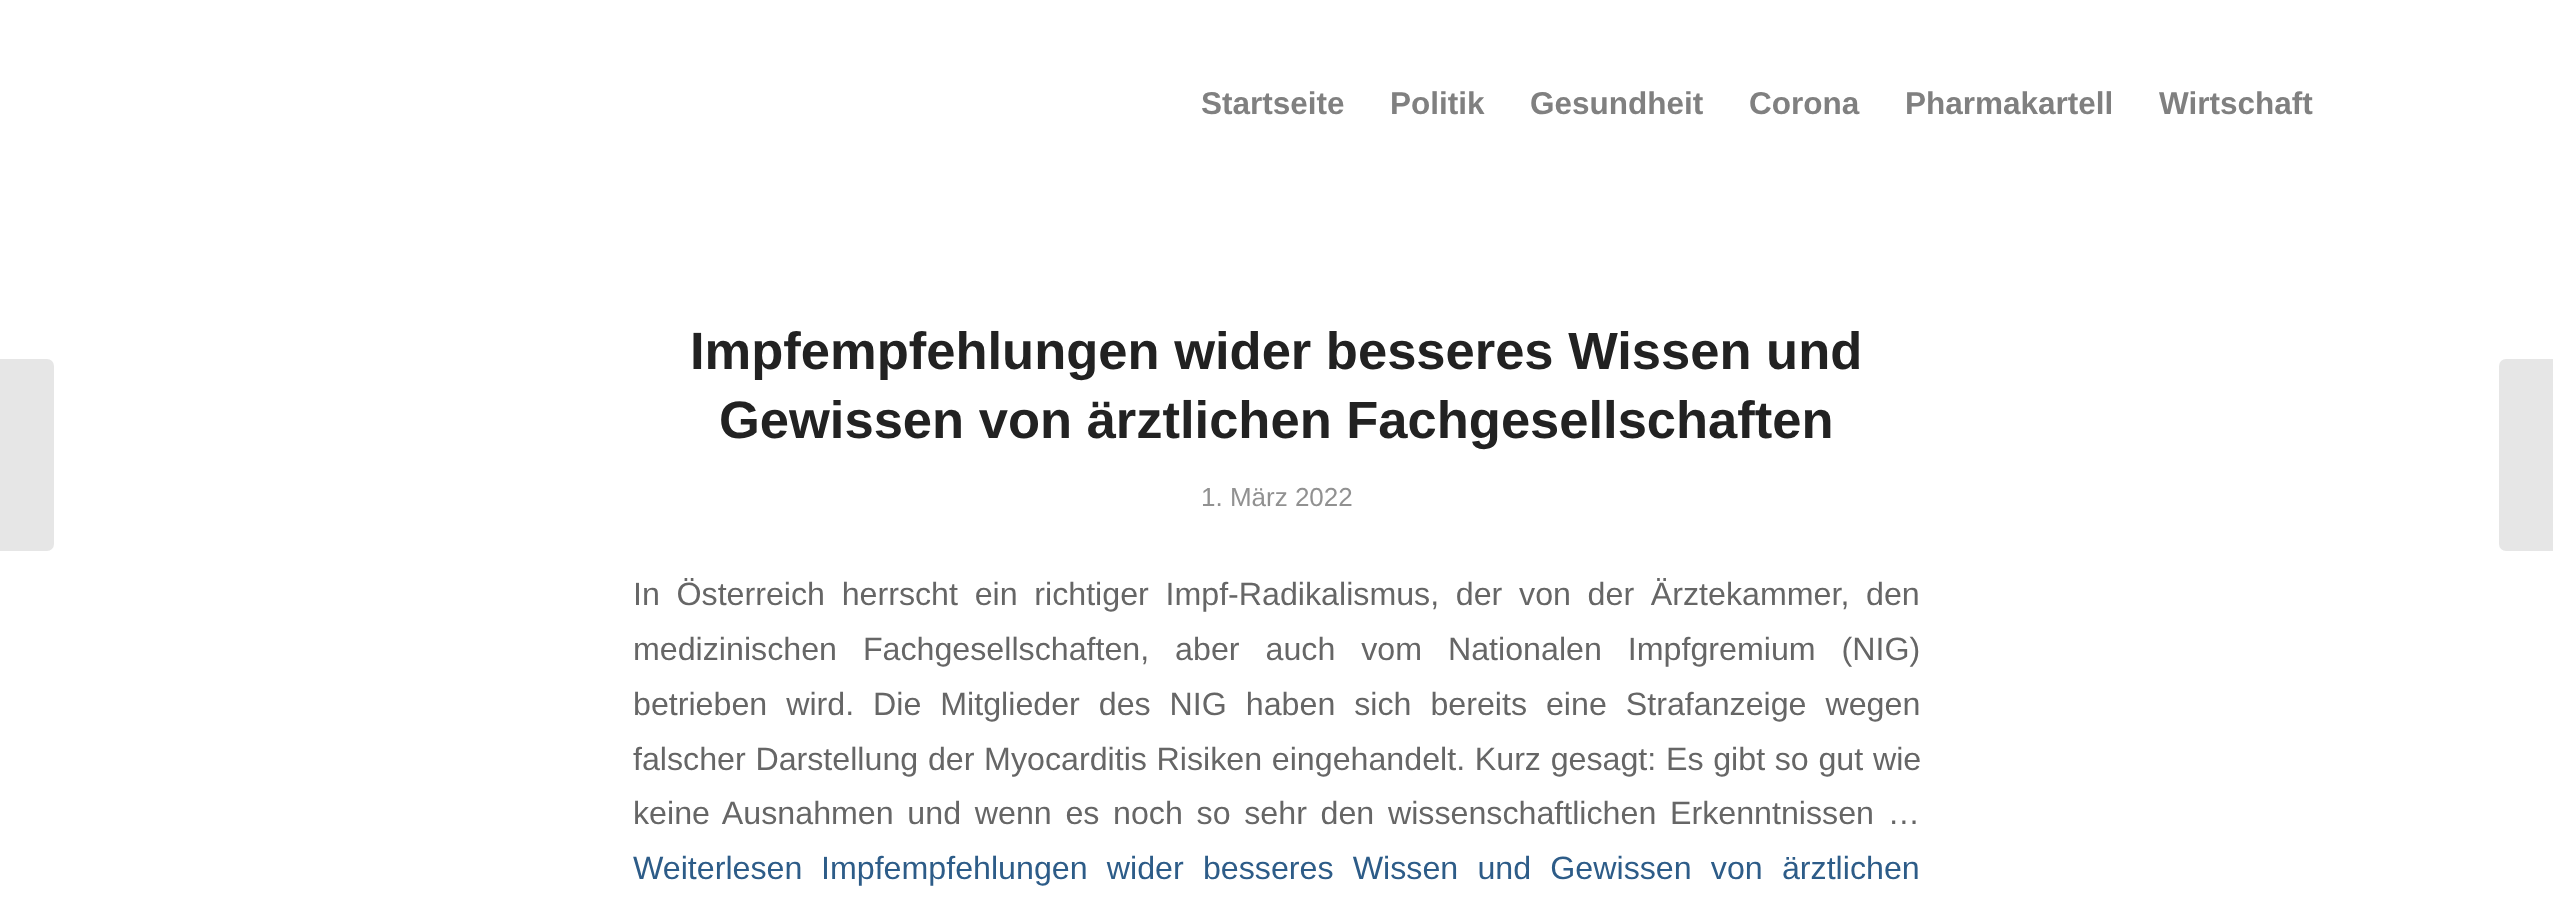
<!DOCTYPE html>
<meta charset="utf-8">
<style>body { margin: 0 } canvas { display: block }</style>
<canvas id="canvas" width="2553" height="908"></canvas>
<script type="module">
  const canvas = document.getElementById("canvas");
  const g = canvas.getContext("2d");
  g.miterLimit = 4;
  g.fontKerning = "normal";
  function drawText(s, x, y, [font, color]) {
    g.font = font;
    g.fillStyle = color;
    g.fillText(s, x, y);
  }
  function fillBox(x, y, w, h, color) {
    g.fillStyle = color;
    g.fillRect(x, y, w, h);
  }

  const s1 = ["bold 31.5px Liberation Sans", "#808080"];
  const s2 = ["bold 52.5px Liberation Sans", "#222222"];
  const s3 = ["26px Liberation Sans", "#919191"];
  const s4 = ["32.2px Liberation Sans", "#666666"];
  const s5 = ["32.2px Liberation Sans", "#2D5C88"];

  fillBox(0, 0, 2553, 908, "#FFFFFF");
  drawText("Startseite", 1201, 114, s1);
  drawText("Politik", 1390, 114, s1);
  drawText("Gesundheit", 1530, 114, s1);
  drawText("Corona", 1749, 114, s1);
  drawText("Pharmakartell", 1905, 114, s1);
  drawText("Wirtschaft", 2159, 114, s1);
  g.fillStyle = "#E6E6E6";
  g.beginPath();
  g.roundRect(0, 359, 54, 192, [0, 7, 7, 0]);
  g.fill();
  drawText("Impfempfehlungen wider besseres Wissen und", 690, 369, s2);
  drawText("Gewissen von ärztlichen Fachgesellschaften", 719, 438, s2);
  drawText("1. März 2022", 1201, 506, s3);
  g.wordSpacing = "7.75px";
  drawText("In Österreich herrscht ein richtiger Impf-Radikalismus, der von der Ärztekammer, den", 633, 605, s4);
  g.wordSpacing = "17px";
  drawText("medizinischen Fachgesellschaften, aber auch vom Nationalen Impfgremium (NIG)", 633, 660, s4);
  g.wordSpacing = "10px";
  drawText("betrieben wird. Die Mitglieder des NIG haben sich bereits eine Strafanzeige wegen", 633, 715, s4);
  g.wordSpacing = "0.75px";
  drawText("falscher Darstellung der Myocarditis Risiken eingehandelt. Kurz gesagt: Es gibt so gut wie", 633, 770, s4);
  g.wordSpacing = "4.75px";
  drawText("keine Ausnahmen und wenn es noch so sehr den wissenschaftlichen Erkenntnissen …", 633, 824, s4);
  g.wordSpacing = "0px";
  drawText("Weiterlesen", 633, 879, s5);
  g.wordSpacing = "10.25px";
  drawText("Impfempfehlungen wider besseres Wissen und Gewissen von ärztlichen", 821, 879, s5);
  g.fillStyle = "#E6E6E6";
  g.beginPath();
  g.roundRect(2499, 359, 54, 192, [7, 0, 0, 7]);
  g.fill();
</script>
